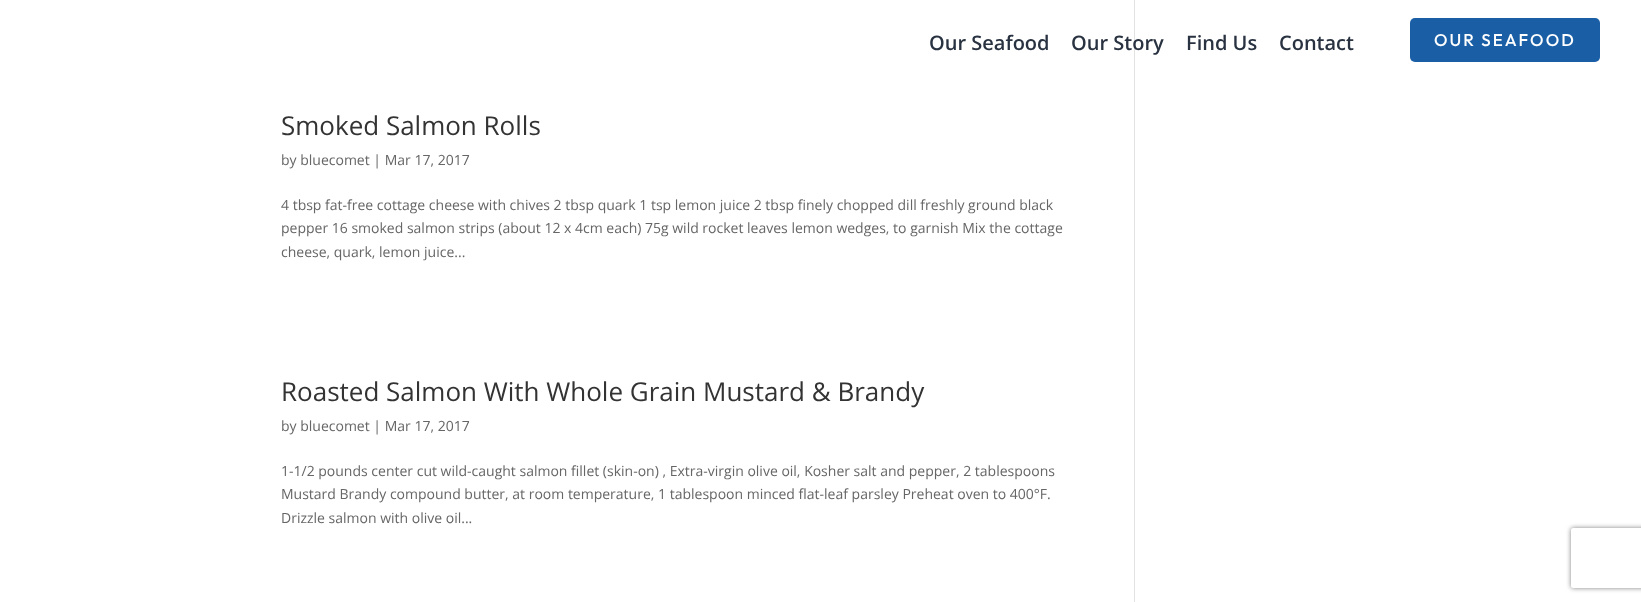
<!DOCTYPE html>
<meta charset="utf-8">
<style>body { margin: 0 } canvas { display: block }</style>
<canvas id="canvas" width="1641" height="602"></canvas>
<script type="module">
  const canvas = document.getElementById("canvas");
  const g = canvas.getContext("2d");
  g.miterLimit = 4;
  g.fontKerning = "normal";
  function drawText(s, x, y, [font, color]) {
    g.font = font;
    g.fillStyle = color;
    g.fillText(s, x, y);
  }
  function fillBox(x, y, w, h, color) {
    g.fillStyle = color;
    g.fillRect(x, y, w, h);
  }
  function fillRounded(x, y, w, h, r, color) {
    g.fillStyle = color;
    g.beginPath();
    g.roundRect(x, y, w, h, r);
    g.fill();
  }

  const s1 = ["600 20px Open Sans", "#293241"];
  const s2 = ["500 17px Outfit", "#FFFFFF"];
  const s3 = ["26px Open Sans", "#333333"];
  const s4 = ["14px Open Sans", "#666666"];

  fillBox(0, 0, 1641, 602, "#FFFFFF");
  drawText("Our Seafood", 929, 50, s1);
  fillBox(1134, 0, 1, 602, "#E2E2E2");
  drawText("Our Story", 1071, 50, s1);
  drawText("Find Us", 1186, 50, s1);
  drawText("Contact", 1279, 50, s1);
  fillRounded(1410, 18, 190, 44, 5, "#1A5EA5");
  g.letterSpacing = "2px";
  drawText("OUR SEAFOOD", 1434, 46, s2);
  g.letterSpacing = "0px";
  drawText("Smoked Salmon Rolls", 281, 135, s3);
  drawText("by bluecomet | Mar 17, 2017", 281, 165, s4);
  drawText("4 tbsp fat-free cottage cheese with chives 2 tbsp quark 1 tsp lemon juice 2 tbsp finely chopped dill freshly ground black", 281, 210, s4);
  drawText("pepper 16 smoked salmon strips (about 12 x 4cm each) 75g wild rocket leaves lemon wedges, to garnish Mix the cottage", 281, 233, s4);
  drawText("cheese, quark, lemon juice...", 281, 257, s4);
  drawText("Roasted Salmon With Whole Grain Mustard & Brandy", 281, 401, s3);
  drawText("by bluecomet | Mar 17, 2017", 281, 431, s4);
  drawText("1-1/2 pounds center cut wild-caught salmon fillet (skin-on) , Extra-virgin olive oil, Kosher salt and pepper, 2 tablespoons", 281, 476, s4);
  drawText("Mustard Brandy compound butter, at room temperature, 1 tablespoon minced flat-leaf parsley Preheat oven to 400°F.", 281, 499, s4);
  drawText("Drizzle salmon with olive oil...", 281, 523, s4);
  g.save();
  g.beginPath();
  g.moveTo(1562, 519);
  g.lineTo(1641, 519);
  g.lineTo(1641, 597);
  g.lineTo(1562, 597);
  g.closePath();
  g.moveTo(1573, 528);
  g.lineTo(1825, 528);
  g.bezierCurveTo(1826, 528, 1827, 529, 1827, 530);
  g.lineTo(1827, 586);
  g.bezierCurveTo(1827, 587, 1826, 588, 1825, 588);
  g.lineTo(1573, 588);
  g.bezierCurveTo(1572, 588, 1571, 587, 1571, 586);
  g.lineTo(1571, 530);
  g.bezierCurveTo(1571, 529, 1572, 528, 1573, 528);
  g.closePath();
  g.clip("evenodd");
  g.fillStyle = "#808080";
  g.filter = "blur(2.5px)";
  g.beginPath();
  g.roundRect(1571, 528, 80, 60, 2);
  g.fill();
  g.filter = "none";
  g.restore();
</script>
